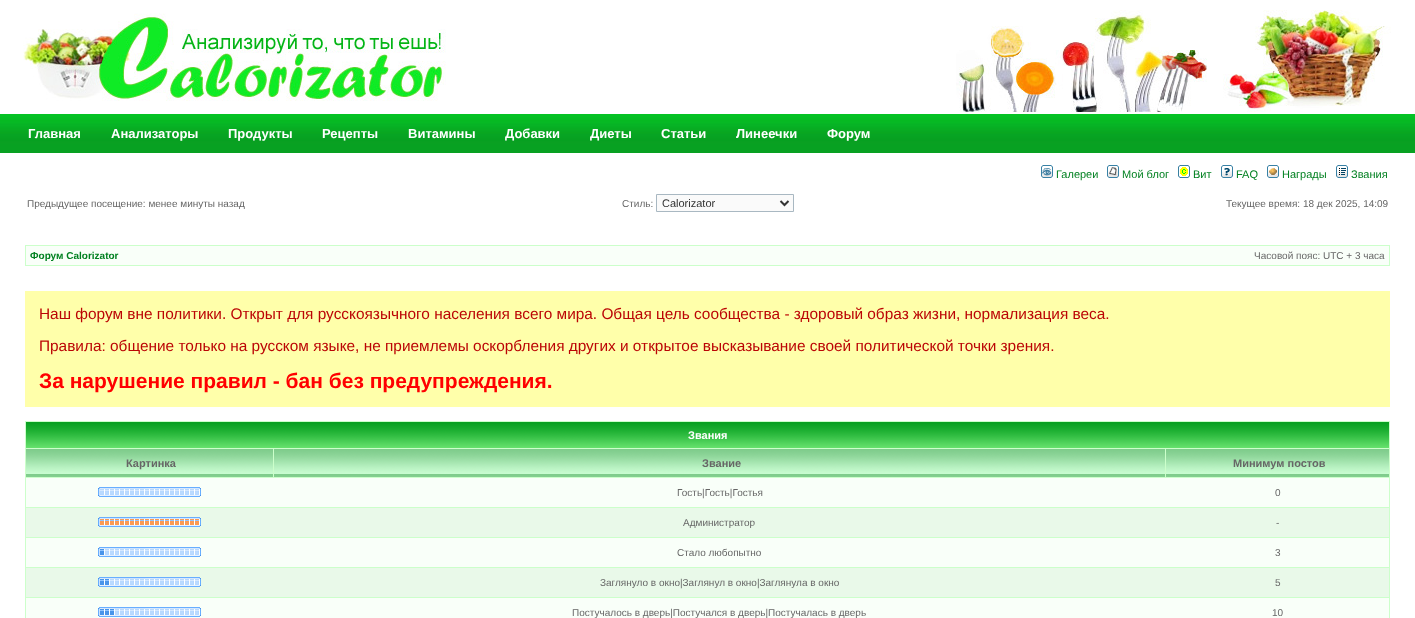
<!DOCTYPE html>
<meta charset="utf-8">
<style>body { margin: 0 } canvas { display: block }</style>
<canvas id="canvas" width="1415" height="618"></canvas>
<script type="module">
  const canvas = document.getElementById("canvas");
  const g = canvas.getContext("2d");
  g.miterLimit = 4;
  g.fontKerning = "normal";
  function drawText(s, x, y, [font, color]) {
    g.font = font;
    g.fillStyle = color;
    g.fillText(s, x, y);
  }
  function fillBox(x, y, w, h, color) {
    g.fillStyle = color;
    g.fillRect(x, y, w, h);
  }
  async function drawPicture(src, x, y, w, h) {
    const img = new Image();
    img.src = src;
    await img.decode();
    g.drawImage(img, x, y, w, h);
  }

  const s1 = ["bold 13px Liberation Sans", "#FFFFFF"];
  const s2 = ["11px Liberation Sans", "#008020"];
  const s3 = ["10px Liberation Sans", "#666666"];
  const s4 = ["11px Liberation Sans", "#333333"];
  const s5 = ["bold 10px Liberation Sans", "#008020"];
  const s6 = ["15.4px Liberation Sans", "#BB0505"];
  const s7 = ["bold 21px Liberation Sans", "#FF0000"];
  const s8 = ["bold 11px Liberation Sans", "#FFFFFF"];
  const s9 = ["bold 11px Liberation Sans", "#666666"];

  fillBox(0, 0, 1415, 618, "#FFFFFF");
  await drawPicture("pic1.png", 23, 13, 423, 88);
  await drawPicture("pic2.png", 956, 10, 435, 102);
  await drawPicture("pic3.png", 0, 114, 1415, 39);
  drawText("Главная", 28, 138, s1);
  drawText("Анализаторы", 111, 138, s1);
  drawText("Продукты", 228, 138, s1);
  drawText("Рецепты", 322, 138, s1);
  drawText("Витамины", 408, 138, s1);
  drawText("Добавки", 505, 138, s1);
  drawText("Диеты", 590, 138, s1);
  drawText("Статьи", 661, 138, s1);
  drawText("Линеечки", 736, 138, s1);
  drawText("Форум", 827, 138, s1);
  await drawPicture("pic4.png", 1041, 165, 12, 13);
  drawText("Галереи", 1056, 178, s2);
  await drawPicture("pic5.png", 1107, 165, 12, 13);
  drawText("Мой блог", 1122, 178, s2);
  await drawPicture("pic6.png", 1178, 165, 12, 13);
  drawText("Вит", 1193, 178, s2);
  await drawPicture("pic7.png", 1221, 165, 12, 13);
  drawText("FAQ", 1236, 178, s2);
  await drawPicture("pic8.png", 1267, 165, 12, 13);
  drawText("Награды", 1282, 178, s2);
  await drawPicture("pic9.png", 1336, 165, 12, 13);
  drawText("Звания", 1351, 178, s2);
  drawText("Предыдущее посещение: менее минуты назад", 27, 207, s3);
  drawText("Стиль:", 622, 207, s3);
  g.fillStyle = "#FAFAFA";
  g.beginPath();
  g.rect(656.5, 194.5, 137, 17);
  g.fill();
  g.strokeStyle = "#A9B8C2";
  g.stroke();
  g.beginPath();
  g.moveTo(780.5, 201);
  g.lineTo(784.5, 205);
  g.lineTo(788.5, 201);
  g.strokeStyle = "#333333";
  g.lineWidth = 2;
  g.stroke();
  drawText("Calorizator", 662, 207, s4);
  drawText("Текущее время: 18 дек 2025, 14:09", 1226, 207, s3);
  fillBox(25, 245, 1365, 21, "#CCFFCB");
  fillBox(26, 246, 1363, 19, "#F9FFF9");
  drawText("Форум Calorizator", 30, 259, s5);
  drawText("Часовой пояс: UTC + 3 часа", 1254, 259, s3);
  fillBox(25, 291, 1365, 116, "#FFFFAA");
  drawText("Наш форум вне политики. Открыт для русскоязычного населения всего мира. Общая цель сообщества - здоровый образ жизни, нормализация веса.", 39, 319, s6);
  drawText("Правила: общение только на русском языке, не приемлемы оскорбления других и открытое высказывание своей политической точки зрения.", 39, 351, s6);
  drawText("За нарушение правил - бан без предупреждения.", 39, 388, s7);
  fillBox(25, 421, 1365, 197, "#CCFFCB");
  fillBox(26, 422, 1363, 2, "#08A121");
  await drawPicture("pic10.png", 26, 424, 1363, 24);
  drawText("Звания", 688, 439, s8);
  await drawPicture("pic11.png", 26, 449, 247, 28);
  drawText("Картинка", 126, 467, s9);
  await drawPicture("pic12.png", 274, 449, 891, 28);
  drawText("Звание", 702, 467, s9);
  await drawPicture("pic13.png", 1166, 449, 223, 28);
  drawText("Минимум постов", 1233, 467, s9);
  fillBox(26, 478, 1363, 29, "#F9FFF9");
  await drawPicture("pic14.png", 98, 487, 103, 10);
  drawText("Гость|Гость|Гостья", 677, 496, s3);
  drawText("0", 1275, 496, s3);
  fillBox(26, 508, 1363, 29, "#E9F9E9");
  await drawPicture("pic15.png", 98, 517, 103, 10);
  drawText("Администратор", 683, 526, s3);
  drawText("-", 1276, 526, s3);
  fillBox(26, 538, 1363, 29, "#F9FFF9");
  await drawPicture("pic16.png", 98, 547, 103, 10);
  drawText("Стало любопытно", 677, 556, s3);
  drawText("3", 1275, 556, s3);
  fillBox(26, 568, 1363, 29, "#E9F9E9");
  await drawPicture("pic17.png", 98, 577, 103, 10);
  drawText("Заглянуло в окно|Заглянул в окно|Заглянула в окно", 600, 586, s3);
  drawText("5", 1275, 586, s3);
  fillBox(26, 598, 1363, 20, "#F9FFF9");
  await drawPicture("pic18.png", 98, 607, 103, 10);
  drawText("Постучалось в дверь|Постучался в дверь|Постучалась в дверь", 572, 616, s3);
  drawText("10", 1272, 616, s3);
</script>
